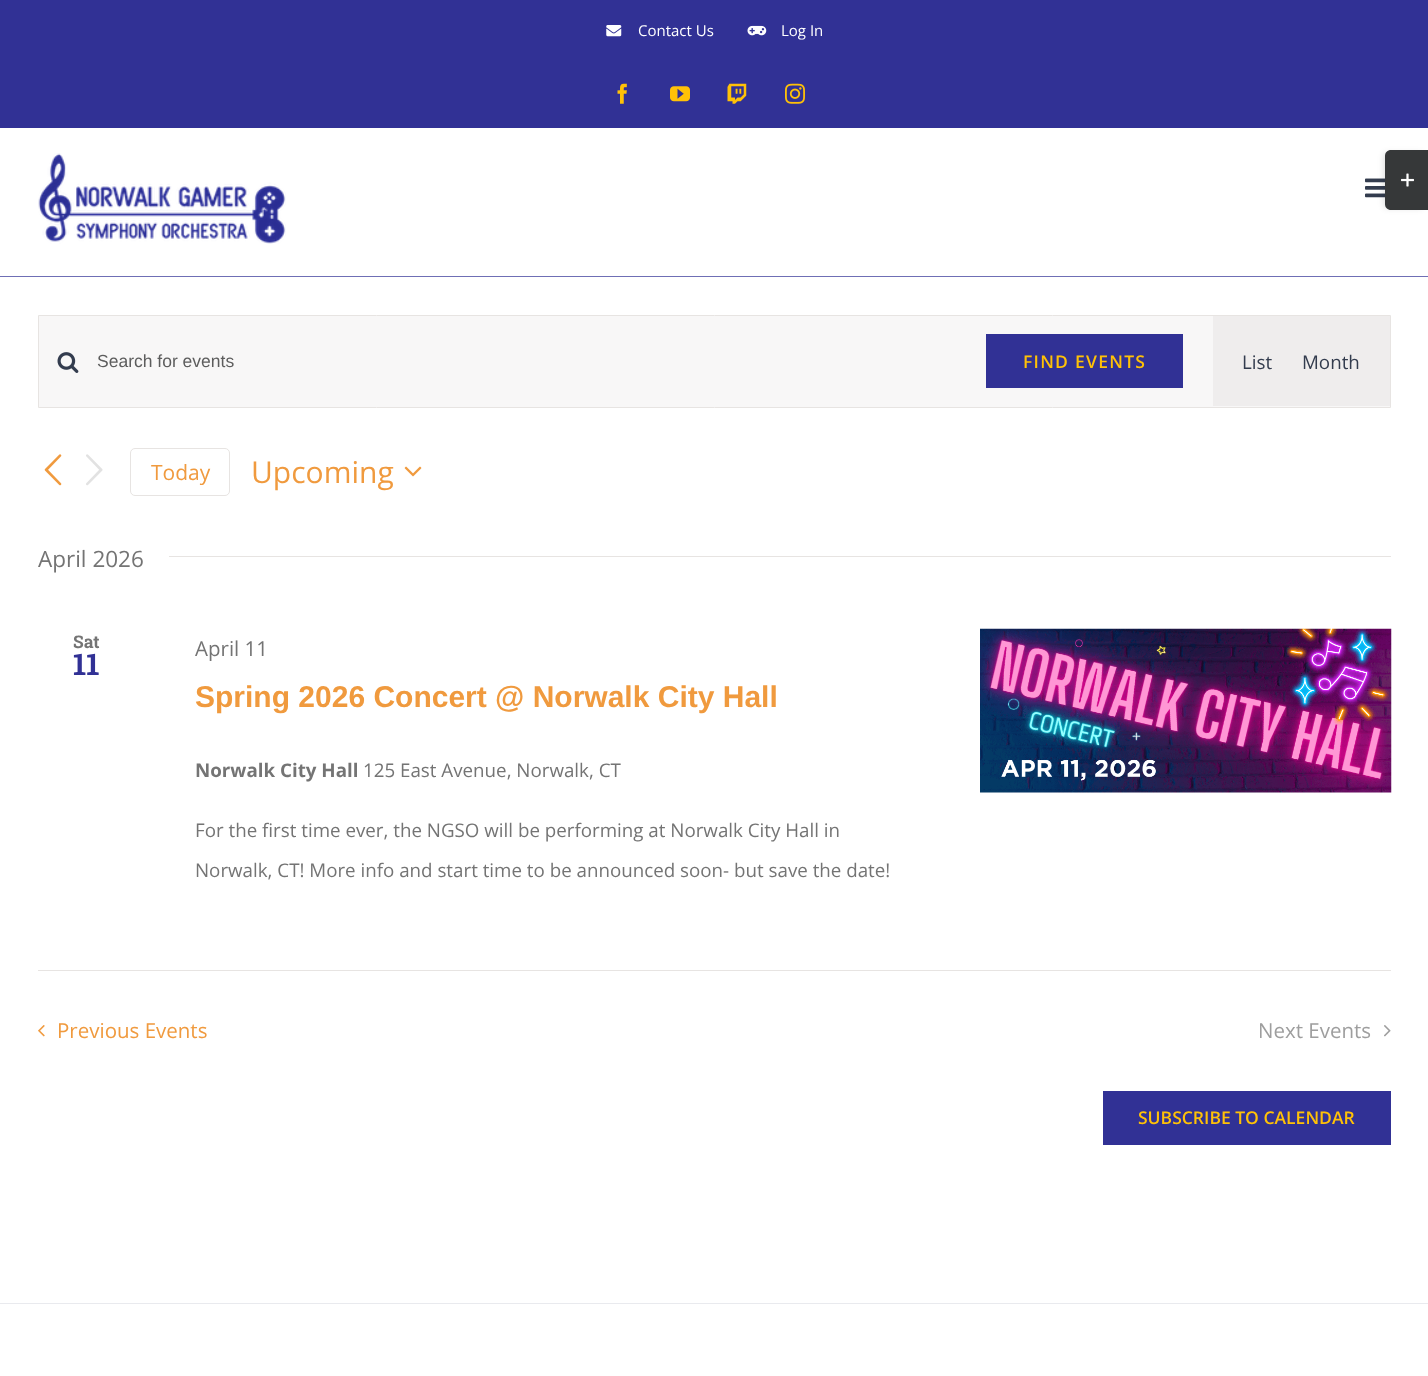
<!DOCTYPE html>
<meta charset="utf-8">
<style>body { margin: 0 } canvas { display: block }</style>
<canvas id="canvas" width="1428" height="1376"></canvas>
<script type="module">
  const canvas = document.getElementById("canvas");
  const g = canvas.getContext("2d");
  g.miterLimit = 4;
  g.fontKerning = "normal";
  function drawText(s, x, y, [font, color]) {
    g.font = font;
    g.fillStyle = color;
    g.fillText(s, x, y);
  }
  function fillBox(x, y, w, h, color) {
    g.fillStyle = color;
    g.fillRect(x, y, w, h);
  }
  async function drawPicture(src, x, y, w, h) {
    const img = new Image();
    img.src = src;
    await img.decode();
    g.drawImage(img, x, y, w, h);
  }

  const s1 = ["15px Open Sans", "#FFFFFF"];
  const s2 = ["17.5px Liberation Sans", "#5D5D5D"];
  const s3 = ["600 17.5px Open Sans", "#FFC107"];
  const s4 = ["18.75px Open Sans", "#333C4E"];
  const s5 = ["21px Open Sans", "#F09A3E"];
  const s6 = ["30px Open Sans", "#F09A3E"];
  const s7 = ["22.5px Open Sans", "#747474"];
  const s8 = ["bold 17.5px Roboto Slab", "#747474"];
  const s9 = ["bold 30px Roboto Slab", "#313195"];
  const s10 = ["20.5px Open Sans", "#747474"];
  const s11 = ["bold 30px Liberation Sans", "#F09A3E"];
  const s12 = ["bold 18.75px Open Sans", "#747474"];
  const s13 = ["18.75px Open Sans", "#747474"];
  const s14 = ["20.5px Open Sans", "#F09A3E"];
  const s15 = ["20.5px Open Sans", "#9E9E9E"];

  fillBox(0, 0, 1428, 1376, "#FFFFFF");
  fillBox(0, 0, 1428, 128, "#313195");
  await drawPicture("pic1.png", 606, 25, 16, 12);
  drawText("Contact Us", 638, 36, s1);
  await drawPicture("pic2.png", 747, 25, 20, 11);
  drawText("Log In", 781, 36, s1);
  await drawPicture("pic3.png", 617, 83, 10, 21);
  await drawPicture("pic4.png", 670, 86, 20, 16);
  await drawPicture("pic5.png", 727, 83, 20, 21);
  await drawPicture("pic6.png", 785, 83, 20, 21);
  fillBox(0, 276, 1428, 1, "#6F6FB5");
  await drawPicture("pic7.png", 38, 153, 248, 91);
  await drawPicture("pic8.png", 1365, 178, 20, 20);
  g.fillStyle = "rgba(0, 0, 0, 0.14)";
  g.filter = "blur(3px)";
  g.beginPath();
  g.roundRect(1384, 153, 39, 55, 4);
  g.fill();
  g.filter = "none";
  g.fillStyle = "#363839";
  g.beginPath();
  g.moveTo(1391, 150);
  g.lineTo(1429, 150);
  g.lineTo(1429, 210);
  g.lineTo(1391, 210);
  g.bezierCurveTo(1387.5, 210, 1385, 207.5, 1385, 204);
  g.lineTo(1385, 156);
  g.bezierCurveTo(1385, 152.5, 1387.5, 150, 1391, 150);
  g.closePath();
  g.fill();
  await drawPicture("pic9.png", 1401, 173, 13, 14);
  g.fillStyle = "#F8F7F7";
  g.beginPath();
  g.rect(38.5, 315.5, 1352, 92);
  g.fill();
  g.strokeStyle = "#E7E4E2";
  g.stroke();
  await drawPicture("pic10.png", 57, 352, 22, 21);
  drawText("Search for events", 97, 367, s2);
  fillBox(986, 334, 197, 54, "#313195");
  g.letterSpacing = "1.25px";
  drawText("FIND EVENTS", 1023, 368, s3);
  fillBox(1213, 316, 177, 90, "#EFEDED");
  g.letterSpacing = "0px";
  drawText("List", 1242, 369, s4);
  drawText("Month", 1302, 369, s4);
  await drawPicture("pic11.png", 44, 454, 18, 32);
  await drawPicture("pic12.png", 86, 454, 17, 32);
  g.beginPath();
  g.roundRect(130.5, 448.5, 99, 47, 4.5);
  g.stroke();
  drawText("Today", 151, 480, s5);
  drawText("Upcoming", 251, 483, s6);
  await drawPicture("pic13.png", 404, 466, 18, 11);
  drawText("April 2026", 38, 567, s7);
  fillBox(169, 556, 1222, 1, "#E7E4E2");
  drawText("Sat", 73, 648, s8);
  drawText("11", 73, 675, s9);
  drawText("April 11", 195, 656, s10);
  drawText("Spring 2026 Concert @ Norwalk City Hall", 195, 707, s11);
  drawText("Norwalk City Hall", 195, 777, s12);
  drawText("125 East Avenue, Norwalk, CT", 363, 777, s13);
  drawText("For the first time ever, the NGSO will be performing at Norwalk City Hall in", 195, 837, s13);
  drawText("Norwalk, CT! More info and start time to be announced soon- but save the date!", 195, 877, s13);
  await drawPicture("pic14.png", 980, 628, 412, 165);
  fillBox(38, 970, 1353, 1, "#E7E4E2");
  await drawPicture("pic15.png", 38, 1025, 7, 12);
  drawText("Previous Events", 57, 1038, s14);
  drawText("Next Events", 1258, 1038, s15);
  await drawPicture("pic16.png", 1384, 1025, 7, 12);
  fillBox(1103, 1091, 288, 54, "#313195");
  drawText("SUBSCRIBE TO CALENDAR", 1138, 1124, s3);
  await drawPicture("pic17.png", 0, 1304, 1428, 72);
  fillBox(0, 1303, 1428, 1, "#E9EAEE");
</script>
